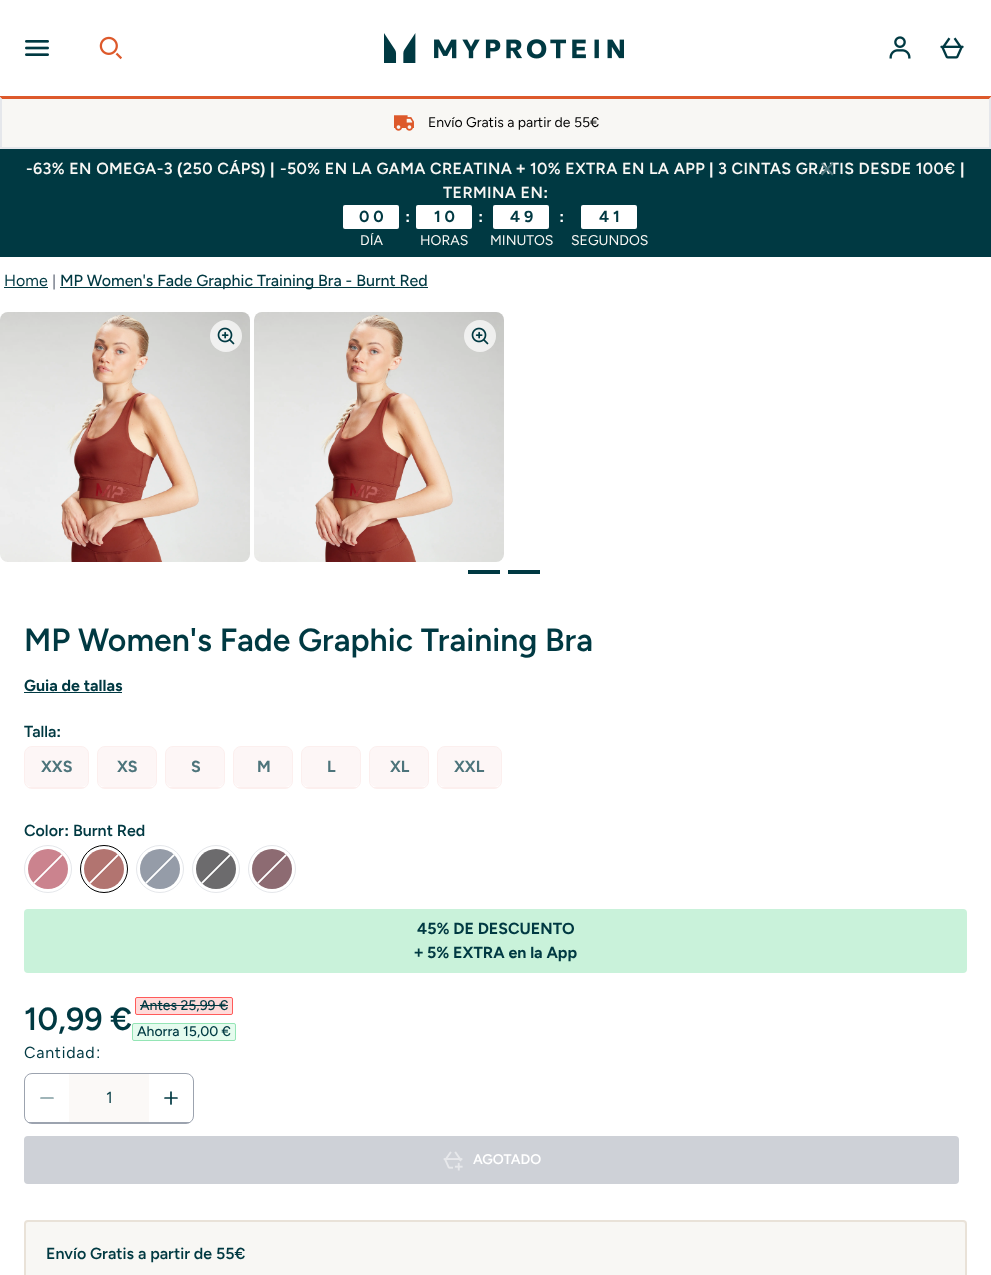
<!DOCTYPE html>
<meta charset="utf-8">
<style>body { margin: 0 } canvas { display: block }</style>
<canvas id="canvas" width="991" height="1275"></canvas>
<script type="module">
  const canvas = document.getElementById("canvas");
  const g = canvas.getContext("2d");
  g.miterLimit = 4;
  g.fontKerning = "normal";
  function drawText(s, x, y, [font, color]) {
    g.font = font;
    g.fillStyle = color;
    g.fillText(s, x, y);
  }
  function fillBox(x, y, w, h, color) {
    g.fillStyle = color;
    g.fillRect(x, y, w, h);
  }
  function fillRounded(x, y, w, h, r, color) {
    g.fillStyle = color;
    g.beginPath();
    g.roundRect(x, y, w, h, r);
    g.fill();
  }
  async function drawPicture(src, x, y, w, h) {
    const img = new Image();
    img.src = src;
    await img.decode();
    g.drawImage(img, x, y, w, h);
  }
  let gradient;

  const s1 = ["14px Figtree", "#000000"];
  const s2 = ["600 16px Figtree", "#F8F7F4"];
  const s3 = ["bold 16px Liberation Sans", "#F8F7F4"];
  const s4 = ["bold 16px Figtree", "#003942"];
  const s5 = ["14px Figtree", "#F8F7F4"];
  const s6 = ["bold 16px Liberation Sans", "#FFFFFF"];
  const s7 = ["22px DejaVu Sans", "#4D747B"];
  const s8 = ["16px Figtree", "#003942"];
  const s9 = ["16px Liberation Sans", "#6B7280"];
  const s10 = ["500 16px Figtree", "#003942"];
  const s11 = ["600 32px Figtree", "#003942"];
  const s12 = ["600 16px Figtree", "#003942"];
  const s13 = ["bold 16px Liberation Sans", "#003942"];
  const s14 = ["bold 16px Figtree", "#4D747B"];
  const s15 = ["500 14px Figtree", "#003942"];
  const s16 = ["16px Liberation Sans", "#003942"];
  const s17 = ["600 14px Figtree", "#FFFFFF"];

  fillBox(0, 0, 991, 1275, "#FFFFFF");
  fillBox(0, 96, 991, 1, "#DD592B");
  await drawPicture("pic1.png", 25, 40, 24, 16);
  await drawPicture("pic2.png", 99, 36, 23, 24);
  await drawPicture("pic3.png", 384, 33, 240, 30);
  await drawPicture("pic4.png", 889, 36, 22, 23);
  await drawPicture("pic5.png", 940, 37, 24, 22);
  fillBox(0, 97, 991, 50, "#F8F7F4");
  g.fillStyle = "#DD592B";
  g.beginPath();
  g.moveTo(0, 97);
  g.lineTo(991, 97);
  g.lineTo(989, 99);
  g.lineTo(2, 99);
  g.closePath();
  g.fill();
  g.fillStyle = "#E5E7EB";
  g.beginPath();
  g.moveTo(991, 97);
  g.lineTo(991, 149);
  g.lineTo(989, 147);
  g.lineTo(989, 99);
  g.closePath();
  g.fill();
  fillBox(0, 147, 991, 2, "#E5E7EB");
  g.beginPath();
  g.moveTo(0, 149);
  g.lineTo(0, 97);
  g.lineTo(2, 99);
  g.lineTo(2, 147);
  g.closePath();
  g.fill();
  await drawPicture("pic6.png", 394, 115, 20, 16);
  drawText("Envío Gratis a partir de 55€", 428, 127, s1);
  fillBox(0, 149, 991, 108, "#003942");
  g.letterSpacing = "0.4px";
  drawText("-63% EN OMEGA-3", 26, 174, s2);
  drawText("(", 177, 174, s3);
  drawText("250 CÁPS", 183, 174, s2);
  drawText(")", 260, 174, s3);
  drawText("|", 270, 174, s3);
  drawText("-50% EN LA GAMA CREATINA", 280, 174, s2);
  drawText("+", 516, 174, s3);
  drawText("10% EXTRA EN LA APP", 530, 174, s2);
  drawText("|", 709, 174, s3);
  drawText("3 CINTAS GRATIS DESDE 100€", 718, 174, s2);
  drawText("|", 960, 174, s3);
  drawText("TERMINA EN", 443, 198, s2);
  drawText(":", 543, 198, s3);
  fillRounded(343, 205, 56, 24, 2, "#FFFFFF");
  g.letterSpacing = "0px";
  drawText("0 0", 359, 222, s4);
  drawText("DÍA", 360, 245, s5);
  drawText(":", 405, 222, s6);
  fillRounded(416, 205, 56, 24, 2, "#FFFFFF");
  drawText("1 0", 434, 222, s4);
  drawText("HORAS", 420, 245, s5);
  drawText(":", 478, 222, s6);
  fillRounded(493, 205, 56, 24, 2, "#FFFFFF");
  drawText("4 9", 510, 222, s4);
  drawText("MINUTOS", 490, 245, s5);
  drawText(":", 559, 222, s6);
  fillRounded(581, 205, 56, 24, 2, "#FFFFFF");
  drawText("4 1", 599, 222, s4);
  drawText("SEGUNDOS", 571, 245, s5);
  drawText("✕", 818, 177, s7);
  drawText("Home", 4, 286, s8);
  fillBox(4, 287, 44, 1, "#003942");
  drawText("|", 52, 286, s9);
  fillBox(60, 287, 368, 1, "#003942");
  drawText("MP Women's Fade Graphic Training Bra - Burnt Red", 60, 286, s10);
  await drawPicture("pic7.png", 0, 312, 250, 250);
  g.fillStyle = "rgba(255, 255, 255, 0.7)";
  g.beginPath();
  g.arc(226, 336, 16, 0, Math.PI * 2);
  g.fill();
  await drawPicture("pic8.png", 217, 327, 18, 18);
  await drawPicture("pic9.png", 254, 312, 250, 250);
  g.beginPath();
  g.arc(480, 336, 16, 0, Math.PI * 2);
  g.fill();
  await drawPicture("pic8.png", 471, 327, 18, 18);
  fillBox(468, 570, 32, 4, "#003942");
  fillBox(508, 570, 32, 4, "#003942");
  drawText("MP Women's Fade Graphic Training Bra", 24, 651, s11);
  drawText("Guia de tallas", 24, 691, s4);
  fillBox(24, 692, 98, 1, "#003942");
  drawText("Talla", 24, 737, s12);
  drawText(":", 56, 737, s13);
  g.fillStyle = "#FDF6F6";
  g.beginPath();
  g.moveTo(32, 747);
  g.lineTo(81, 747);
  g.bezierCurveTo(85, 747, 88, 750, 88, 754);
  g.lineTo(88, 781);
  g.bezierCurveTo(88, 784, 85, 787, 81, 787);
  g.lineTo(32, 787);
  g.bezierCurveTo(28, 787, 25, 784, 25, 781);
  g.lineTo(25, 754);
  g.bezierCurveTo(25, 750, 28, 747, 32, 747);
  g.closePath();
  g.fill();
  g.beginPath();
  g.roundRect(24.5, 746.5, 64, 42, 7.5);
  g.strokeStyle = "#FCEFEE";
  g.stroke();
  fillBox(28, 787, 57, 1, "#FCEFEE");
  drawText("XXS", 41, 772, s14);
  g.fillStyle = "#FDF6F6";
  g.beginPath();
  g.moveTo(105, 747);
  g.lineTo(149, 747);
  g.bezierCurveTo(153, 747, 156, 750, 156, 754);
  g.lineTo(156, 781);
  g.bezierCurveTo(156, 784, 153, 787, 149, 787);
  g.lineTo(105, 787);
  g.bezierCurveTo(101, 787, 98, 784, 98, 781);
  g.lineTo(98, 754);
  g.bezierCurveTo(98, 750, 101, 747, 105, 747);
  g.closePath();
  g.fill();
  g.beginPath();
  g.roundRect(97.5, 746.5, 59, 42, 7.5);
  g.stroke();
  fillBox(101, 787, 52, 1, "#FCEFEE");
  drawText("XS", 117, 772, s14);
  g.fillStyle = "#FDF6F6";
  g.beginPath();
  g.moveTo(173, 747);
  g.lineTo(217, 747);
  g.bezierCurveTo(221, 747, 224, 750, 224, 754);
  g.lineTo(224, 781);
  g.bezierCurveTo(224, 784, 221, 787, 217, 787);
  g.lineTo(173, 787);
  g.bezierCurveTo(169, 787, 166, 784, 166, 781);
  g.lineTo(166, 754);
  g.bezierCurveTo(166, 750, 169, 747, 173, 747);
  g.closePath();
  g.fill();
  g.beginPath();
  g.roundRect(165.5, 746.5, 59, 42, 7.5);
  g.stroke();
  fillBox(169, 787, 52, 1, "#FCEFEE");
  drawText("S", 191, 772, s14);
  g.fillStyle = "#FDF6F6";
  g.beginPath();
  g.moveTo(241, 747);
  g.lineTo(285, 747);
  g.bezierCurveTo(289, 747, 292, 750, 292, 754);
  g.lineTo(292, 781);
  g.bezierCurveTo(292, 784, 289, 787, 285, 787);
  g.lineTo(241, 787);
  g.bezierCurveTo(237, 787, 234, 784, 234, 781);
  g.lineTo(234, 754);
  g.bezierCurveTo(234, 750, 237, 747, 241, 747);
  g.closePath();
  g.fill();
  g.beginPath();
  g.roundRect(233.5, 746.5, 59, 42, 7.5);
  g.stroke();
  fillBox(237, 787, 52, 1, "#FCEFEE");
  drawText("M", 257, 772, s14);
  g.fillStyle = "#FDF6F6";
  g.beginPath();
  g.moveTo(309, 747);
  g.lineTo(353, 747);
  g.bezierCurveTo(357, 747, 360, 750, 360, 754);
  g.lineTo(360, 781);
  g.bezierCurveTo(360, 784, 357, 787, 353, 787);
  g.lineTo(309, 787);
  g.bezierCurveTo(305, 787, 302, 784, 302, 781);
  g.lineTo(302, 754);
  g.bezierCurveTo(302, 750, 305, 747, 309, 747);
  g.closePath();
  g.fill();
  g.beginPath();
  g.roundRect(301.5, 746.5, 59, 42, 7.5);
  g.stroke();
  fillBox(305, 787, 52, 1, "#FCEFEE");
  drawText("L", 327, 772, s14);
  g.fillStyle = "#FDF6F6";
  g.beginPath();
  g.moveTo(377, 747);
  g.lineTo(421, 747);
  g.bezierCurveTo(425, 747, 428, 750, 428, 754);
  g.lineTo(428, 781);
  g.bezierCurveTo(428, 784, 425, 787, 421, 787);
  g.lineTo(377, 787);
  g.bezierCurveTo(373, 787, 370, 784, 370, 781);
  g.lineTo(370, 754);
  g.bezierCurveTo(370, 750, 373, 747, 377, 747);
  g.closePath();
  g.fill();
  g.beginPath();
  g.roundRect(369.5, 746.5, 59, 42, 7.5);
  g.stroke();
  fillBox(373, 787, 52, 1, "#FCEFEE");
  drawText("XL", 390, 772, s14);
  g.fillStyle = "#FDF6F6";
  g.beginPath();
  g.moveTo(445, 747);
  g.lineTo(494, 747);
  g.bezierCurveTo(498, 747, 501, 750, 501, 754);
  g.lineTo(501, 781);
  g.bezierCurveTo(501, 784, 498, 787, 494, 787);
  g.lineTo(445, 787);
  g.bezierCurveTo(441, 787, 438, 784, 438, 781);
  g.lineTo(438, 754);
  g.bezierCurveTo(438, 750, 441, 747, 445, 747);
  g.closePath();
  g.fill();
  g.beginPath();
  g.roundRect(437.5, 746.5, 64, 42, 7.5);
  g.stroke();
  fillBox(441, 787, 57, 1, "#FCEFEE");
  drawText("XXL", 454, 772, s14);
  drawText("Color", 24, 836, s12);
  drawText(":", 64, 836, s13);
  drawText("Burnt Red", 73, 836, s12);
  g.beginPath();
  g.arc(48, 869, 23.5, 0, Math.PI * 2);
  g.strokeStyle = "#E5E7EB";
  g.stroke();
  g.fillStyle = "#CB838E";
  g.beginPath();
  g.arc(48, 869, 20, 0, Math.PI * 2);
  g.fill();
  gradient = g.createLinearGradient(68, 889, 28, 849);
  gradient.addColorStop(0.48, "rgba(255, 255, 255, 0)");
  gradient.addColorStop(0.49, "#FFFFFF");
  gradient.addColorStop(0.51, "#FFFFFF");
  gradient.addColorStop(0.52, "rgba(255, 255, 255, 0)");
  g.fillStyle = gradient;
  g.beginPath();
  g.arc(48, 869, 20, 0, Math.PI * 2);
  g.fill();
  g.beginPath();
  g.arc(104, 869, 23.5, 0, Math.PI * 2);
  g.strokeStyle = "#000000";
  g.stroke();
  g.fillStyle = "#B27470";
  g.beginPath();
  g.arc(104, 869, 20, 0, Math.PI * 2);
  g.fill();
  gradient = g.createLinearGradient(124, 889, 84, 849);
  gradient.addColorStop(0.48, "rgba(255, 255, 255, 0)");
  gradient.addColorStop(0.49, "#FFFFFF");
  gradient.addColorStop(0.51, "#FFFFFF");
  gradient.addColorStop(0.52, "rgba(255, 255, 255, 0)");
  g.fillStyle = gradient;
  g.beginPath();
  g.arc(104, 869, 20, 0, Math.PI * 2);
  g.fill();
  g.beginPath();
  g.arc(160, 869, 23.5, 0, Math.PI * 2);
  g.strokeStyle = "#E5E7EB";
  g.stroke();
  g.fillStyle = "#959CA8";
  g.beginPath();
  g.arc(160, 869, 20, 0, Math.PI * 2);
  g.fill();
  gradient = g.createLinearGradient(180, 889, 140, 849);
  gradient.addColorStop(0.48, "rgba(255, 255, 255, 0)");
  gradient.addColorStop(0.49, "#FFFFFF");
  gradient.addColorStop(0.51, "#FFFFFF");
  gradient.addColorStop(0.52, "rgba(255, 255, 255, 0)");
  g.fillStyle = gradient;
  g.beginPath();
  g.arc(160, 869, 20, 0, Math.PI * 2);
  g.fill();
  g.beginPath();
  g.arc(216, 869, 23.5, 0, Math.PI * 2);
  g.stroke();
  g.fillStyle = "#6C6B6D";
  g.beginPath();
  g.arc(216, 869, 20, 0, Math.PI * 2);
  g.fill();
  gradient = g.createLinearGradient(236, 889, 196, 849);
  gradient.addColorStop(0.48, "rgba(255, 255, 255, 0)");
  gradient.addColorStop(0.49, "#FFFFFF");
  gradient.addColorStop(0.51, "#FFFFFF");
  gradient.addColorStop(0.52, "rgba(255, 255, 255, 0)");
  g.fillStyle = gradient;
  g.beginPath();
  g.arc(216, 869, 20, 0, Math.PI * 2);
  g.fill();
  g.beginPath();
  g.arc(272, 869, 23.5, 0, Math.PI * 2);
  g.stroke();
  g.fillStyle = "#8D6B72";
  g.beginPath();
  g.arc(272, 869, 20, 0, Math.PI * 2);
  g.fill();
  gradient = g.createLinearGradient(292, 889, 252, 849);
  gradient.addColorStop(0.48, "rgba(255, 255, 255, 0)");
  gradient.addColorStop(0.49, "#FFFFFF");
  gradient.addColorStop(0.51, "#FFFFFF");
  gradient.addColorStop(0.52, "rgba(255, 255, 255, 0)");
  g.fillStyle = gradient;
  g.beginPath();
  g.arc(272, 869, 20, 0, Math.PI * 2);
  g.fill();
  fillRounded(24, 909, 943, 64, 4, "#C9F2DA");
  drawText("45% DE DESCUENTO", 417, 934, s4);
  drawText("+", 414, 958, s13);
  drawText("5% EXTRA en la App", 427, 958, s4);
  drawText("10,99 €", 24, 1030, s11);
  g.fillStyle = "#FFDBDA";
  g.beginPath();
  g.roundRect(135.5, 997.5, 97, 17, 1.5);
  g.fill();
  g.strokeStyle = "#FF5B5A";
  g.stroke();
  drawText("Antes 25,99 €", 140, 1010, s15);
  fillBox(140, 1005, 88, 1, "#003942");
  g.fillStyle = "#E5FBEE";
  g.beginPath();
  g.roundRect(132.5, 1023.5, 103, 17, 1.5);
  g.fill();
  g.strokeStyle = "#94E5B5";
  g.stroke();
  drawText("Ahorra 15,00 €", 137, 1036, s15);
  g.letterSpacing = "0.75px";
  drawText("Cantidad", 24, 1058, s8);
  drawText(":", 96, 1058, s16);
  g.beginPath();
  g.roundRect(24.5, 1073.5, 169, 50, 7.5);
  g.strokeStyle = "#9CA3AF";
  g.stroke();
  fillBox(28, 1122, 162, 1, "#9CA3AF");
  g.beginPath();
  g.moveTo(53, 1098);
  g.lineTo(41, 1098);
  g.strokeStyle = "#809CA1";
  g.lineWidth = 1.7;
  g.lineCap = "round";
  g.lineJoin = "round";
  g.stroke();
  fillBox(69, 1074, 80, 48, "#FBF9F7");
  g.letterSpacing = "0px";
  drawText("1", 106, 1103, s8);
  g.beginPath();
  g.moveTo(171, 1092);
  g.lineTo(171, 1104);
  g.moveTo(177, 1098);
  g.lineTo(165, 1098);
  g.strokeStyle = "#003942";
  g.stroke();
  fillRounded(24, 1136, 935, 48, 4, "#CED1D7");
  await drawPicture("pic10.png", 443, 1151, 20, 20);
  drawText("AGOTADO", 473, 1164, s17);
  g.fillStyle = "#F8F7F4";
  g.beginPath();
  g.roundRect(25, 1221, 941, 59, 3);
  g.fill();
  g.strokeStyle = "#E9E2D8";
  g.lineWidth = 2;
  g.lineJoin = "miter";
  g.stroke();
  drawText("Envío Gratis a partir de 55€", 46, 1259, s12);
</script>
